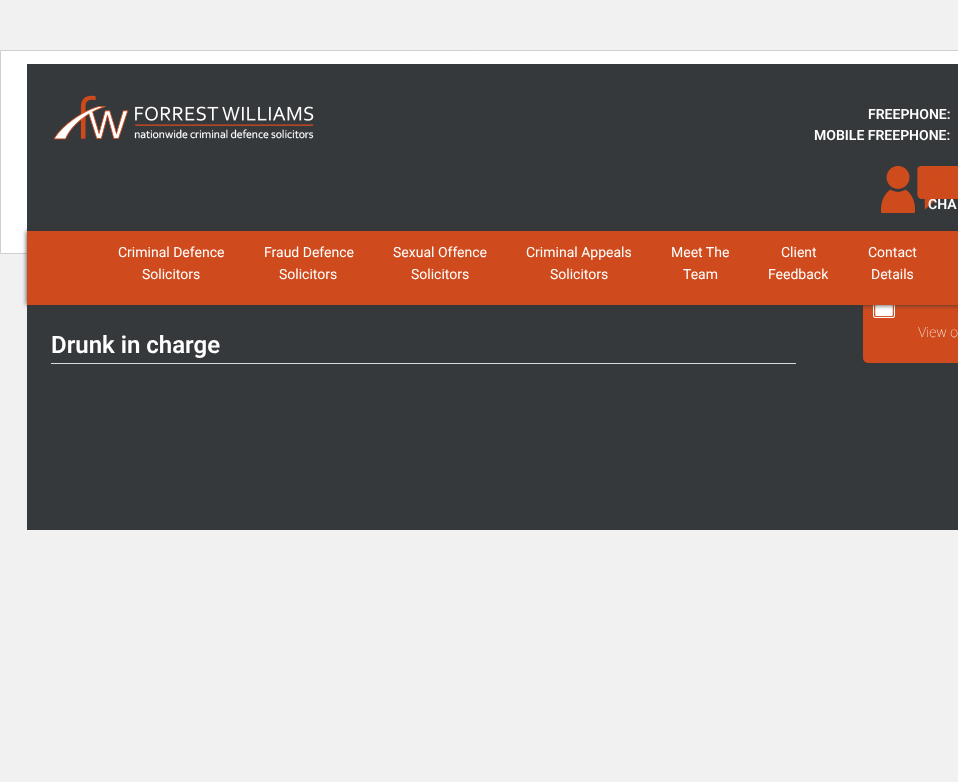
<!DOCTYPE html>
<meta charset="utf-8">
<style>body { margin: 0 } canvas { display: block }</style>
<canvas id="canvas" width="958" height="782"></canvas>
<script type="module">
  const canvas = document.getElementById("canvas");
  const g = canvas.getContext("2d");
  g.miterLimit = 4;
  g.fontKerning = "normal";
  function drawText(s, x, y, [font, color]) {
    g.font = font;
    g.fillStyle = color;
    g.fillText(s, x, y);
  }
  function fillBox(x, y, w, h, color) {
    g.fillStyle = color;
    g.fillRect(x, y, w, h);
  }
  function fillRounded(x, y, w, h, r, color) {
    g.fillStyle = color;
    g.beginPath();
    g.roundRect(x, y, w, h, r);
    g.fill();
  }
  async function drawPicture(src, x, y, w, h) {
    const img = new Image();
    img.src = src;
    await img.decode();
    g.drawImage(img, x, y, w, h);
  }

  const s1 = ["600 14px Roboto", "#FFFFFF"];
  const s2 = ["14px Roboto", "#FFFFFF"];
  const s3 = ["100 14px Roboto", "#FFFFFF"];
  const s4 = ["600 24px Roboto", "#FFFFFF"];

  fillBox(0, 0, 958, 782, "#F1F1F1");
  g.fillStyle = "#FFFFFF";
  g.beginPath();
  g.rect(0.5, 50.5, 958, 203);
  g.fill();
  g.strokeStyle = "#CCD0D4";
  g.stroke();
  fillBox(27, 64, 931, 167, "#36393B");
  await drawPicture("pic1.png", 53, 95, 261, 45);
  drawText("FREEPHONE:", 868, 119, s1);
  drawText("MOBILE FREEPHONE:", 814, 140, s1);
  await drawPicture("pic2.png", 881, 166, 77, 47);
  drawText("CHA", 928, 209, s1);
  fillBox(27, 305, 931, 225, "#36393B");
  fillRounded(863, 292, 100, 71, 5, "#CF4B1D");
  await drawPicture("pic3.png", 873, 305, 22, 13);
  g.fillStyle = "#333333";
  g.filter = "blur(2.5px)";
  g.beginPath();
  g.rect(27, 231, 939, 74);
  g.fill();
  g.filter = "none";
  fillBox(27, 231, 931, 74, "#CF4B1D");
  drawText("Criminal Defence", 118, 257, s2);
  drawText("Solicitors", 142, 279, s2);
  drawText("Fraud Defence", 264, 257, s2);
  drawText("Solicitors", 279, 279, s2);
  drawText("Sexual Offence", 393, 257, s2);
  drawText("Solicitors", 411, 279, s2);
  drawText("Criminal Appeals", 526, 257, s2);
  drawText("Solicitors", 550, 279, s2);
  drawText("Meet The", 671, 257, s2);
  drawText("Team", 683, 279, s2);
  drawText("Client", 781, 257, s2);
  drawText("Feedback", 768, 279, s2);
  drawText("Contact", 868, 257, s2);
  drawText("Details", 871, 279, s2);
  drawText("View o", 918, 337, s3);
  fillBox(51, 363, 745, 1, "#DADADA");
  drawText("Drunk in charge", 51, 353, s4);
</script>
